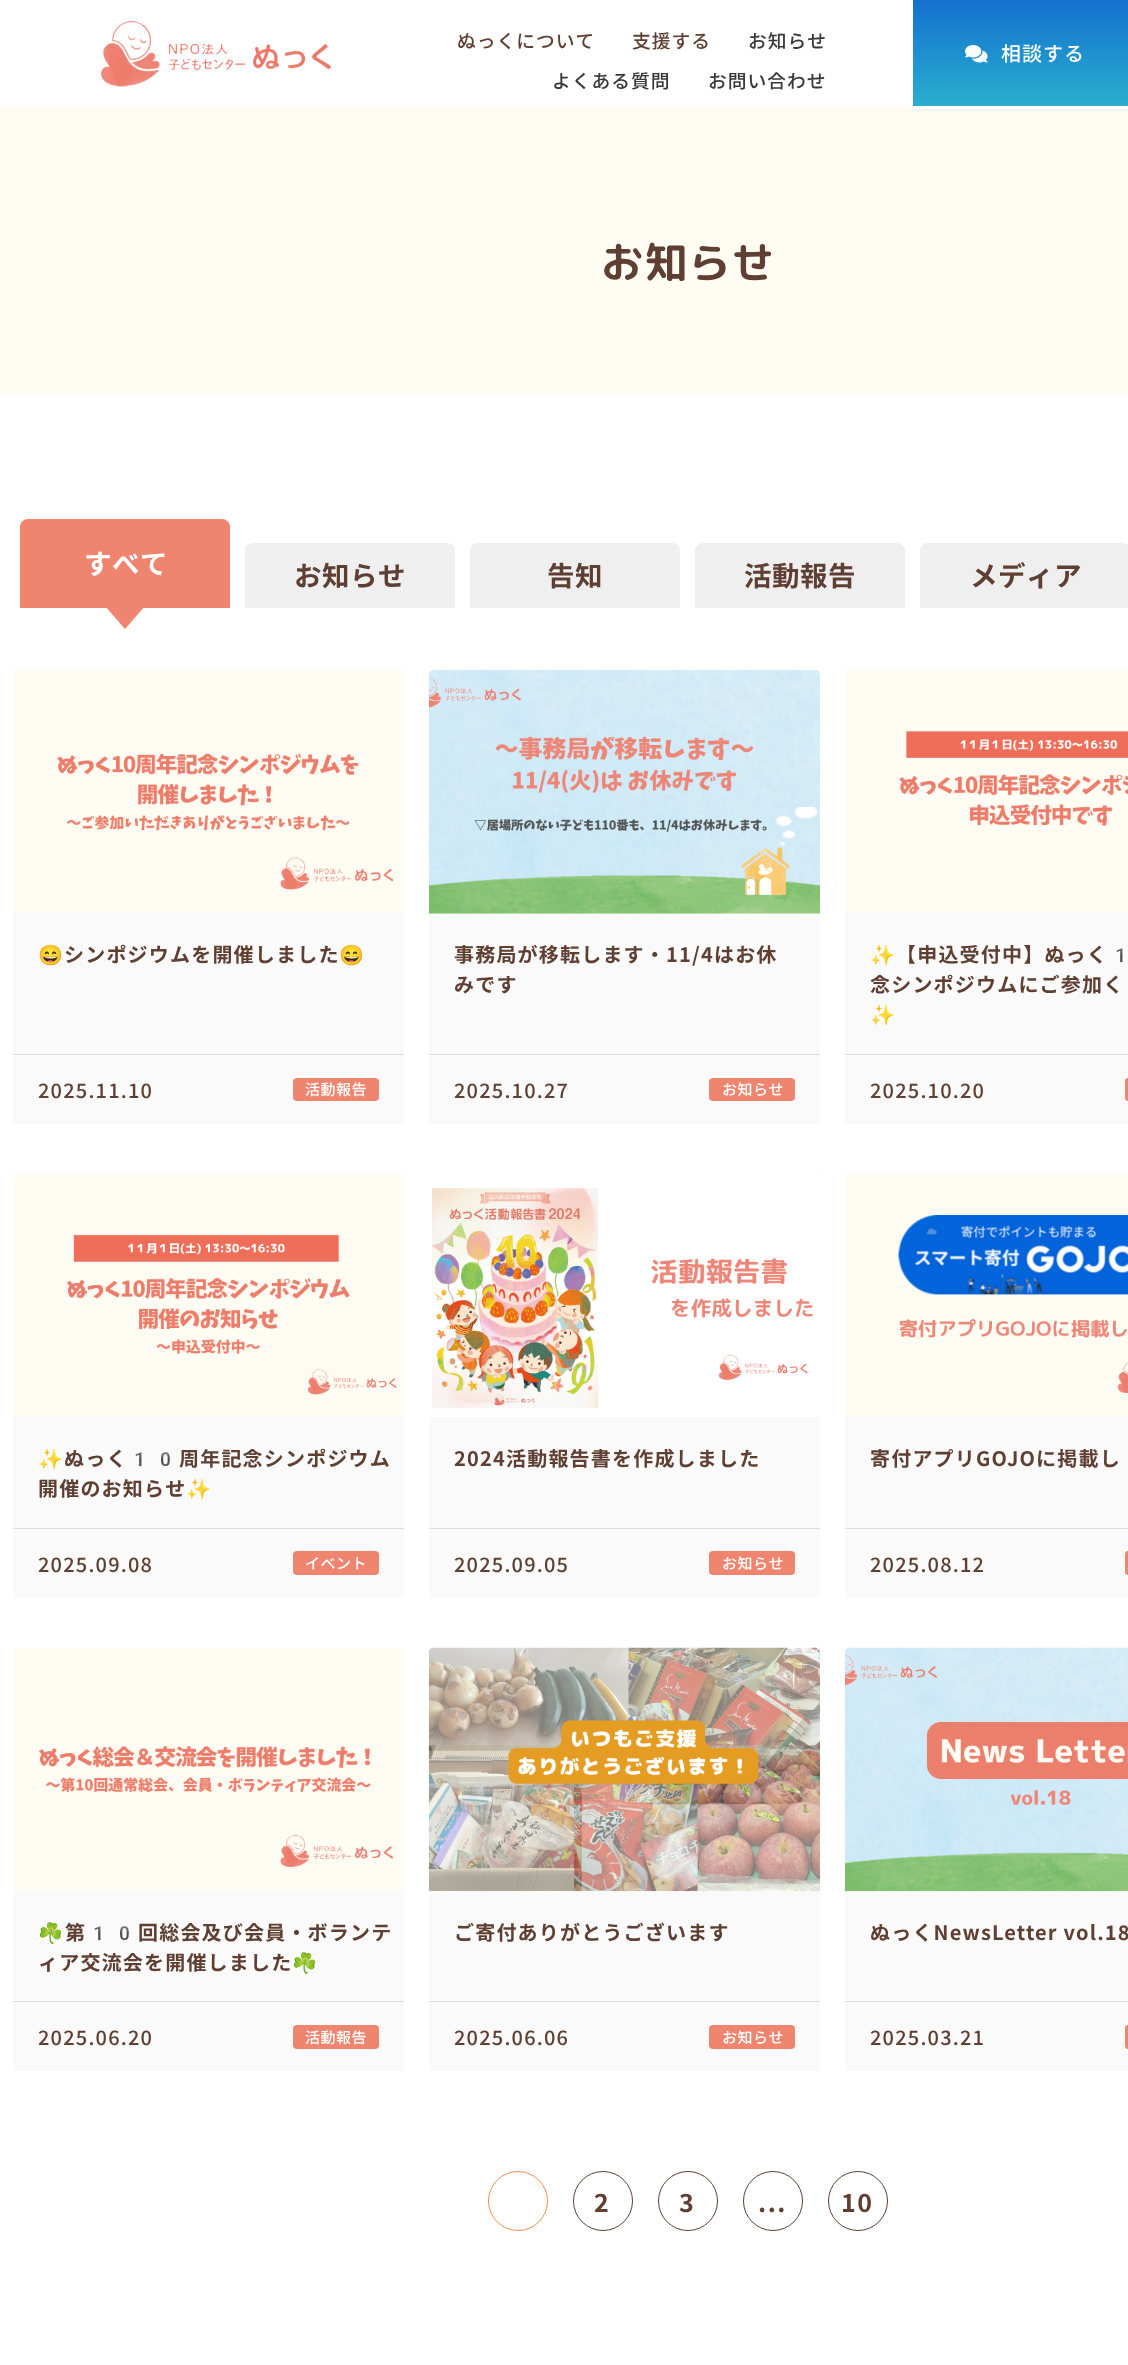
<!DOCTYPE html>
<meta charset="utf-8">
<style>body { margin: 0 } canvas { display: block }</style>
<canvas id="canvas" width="1128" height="2365"></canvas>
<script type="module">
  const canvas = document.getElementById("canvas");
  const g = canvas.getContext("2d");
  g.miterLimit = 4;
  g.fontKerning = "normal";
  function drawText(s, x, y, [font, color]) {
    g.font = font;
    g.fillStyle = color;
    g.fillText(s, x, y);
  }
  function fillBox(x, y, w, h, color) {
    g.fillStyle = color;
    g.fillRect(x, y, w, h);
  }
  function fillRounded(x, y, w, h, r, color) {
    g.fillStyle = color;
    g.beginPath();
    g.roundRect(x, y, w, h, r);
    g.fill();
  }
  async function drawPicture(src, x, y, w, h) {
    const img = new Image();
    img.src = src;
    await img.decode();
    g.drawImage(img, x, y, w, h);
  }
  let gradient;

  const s1 = ["500 18.75px Noto Sans JP", "#5E3F31"];
  const s2 = ["500 18.75px Noto Sans JP", "#383838"];
  const s3 = ["500 20px Noto Sans JP", "#FFFFFF"];
  const s4 = ["bold 42.5px 'Rounded Mplus 1c Bold'", "#5E3F31"];
  const s5 = ["bold 27.5px Noto Sans JP", "#FFFFFF"];
  const s6 = ["bold 27.5px Noto Sans JP", "#5E3F31"];
  const s7 = ["bold 20px Noto Color Emoji", "#5E3F31"];
  const s8 = ["bold 20px Noto Sans JP", "#5E3F31"];
  const s9 = ["500 20px Noto Sans JP", "#5E3F31"];
  const s10 = ["500 15px Noto Sans JP", "#FFFFFF"];
  const s11 = ["bold 25px Noto Sans JP", "#5E3F31"];

  fillBox(0, 0, 1128, 2365, "#FFFFFF");
  await drawPicture("pic1.png", 100, 21, 231, 66);
  g.letterSpacing = "1px";
  drawText("ぬっくについて", 457, 48, s1);
  drawText("支援する", 632, 48, s1);
  drawText("お知らせ", 748, 48, s2);
  drawText("よくある質問", 552, 88, s2);
  drawText("お問い合わせ", 708, 88, s2);
  gradient = g.createLinearGradient(1025, 0, 1025, 106);
  gradient.addColorStop(0, "#1371D0");
  gradient.addColorStop(1, "#29AECE");
  g.fillStyle = gradient;
  g.fillRect(913, 0, 215, 106);
  await drawPicture("pic2.png", 965, 45, 23, 18);
  drawText("相談する", 1001, 61, s3);
  fillBox(0, 106, 1128, 288, "#FFFDF3");
  drawText("お知らせ", 601, 278, s4);
  g.fillStyle = "#EF846F";
  g.beginPath();
  g.roundRect(20, 519, 210, 89, [8, 8, 0, 0]);
  g.fill();
  g.letterSpacing = "0.5px";
  drawText("すべて", 84, 574, s5);
  g.fillStyle = "#EF846F";
  g.beginPath();
  g.moveTo(105, 606);
  g.lineTo(145, 606);
  g.lineTo(125, 629);
  g.closePath();
  g.fill();
  g.fillStyle = "#EFEFEF";
  g.beginPath();
  g.roundRect(245, 543, 210, 65, [8, 8, 0, 0]);
  g.fill();
  drawText("お知らせ", 294, 586, s6);
  g.fillStyle = "#EFEFEF";
  g.beginPath();
  g.roundRect(470, 543, 210, 65, [8, 8, 0, 0]);
  g.fill();
  drawText("告知", 547, 586, s6);
  g.fillStyle = "#EFEFEF";
  g.beginPath();
  g.roundRect(695, 543, 210, 65, [8, 8, 0, 0]);
  g.fill();
  drawText("活動報告", 744, 586, s6);
  g.fillStyle = "#EFEFEF";
  g.beginPath();
  g.moveTo(928, 543);
  g.lineTo(1122, 543);
  g.bezierCurveTo(1126.5, 543, 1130, 546.5, 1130, 551);
  g.lineTo(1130, 608);
  g.lineTo(920, 608);
  g.lineTo(920, 551);
  g.bezierCurveTo(920, 546.5, 923.5, 543, 928, 543);
  g.closePath();
  g.fill();
  drawText("メディア", 970, 586, s6);
  fillBox(13, 670, 391, 454, "#FAFAFA");
  await drawPicture("pic3.png", 13, 670, 390, 243);
  g.letterSpacing = "1.2px";
  drawText("😄", 38, 962, s7);
  drawText("シンポジウムを開催しました", 64, 962, s8);
  drawText("😄", 339, 962, s7);
  fillBox(13, 1054, 391, 1, "#DDDDDD");
  drawText("2025.11.10", 38, 1098, s9);
  fillRounded(293, 1078, 86, 23, 4, "#EF846F");
  g.letterSpacing = "0.5px";
  drawText("活動報告", 305, 1095, s10);
  fillBox(429, 670, 391, 454, "#FAFAFA");
  await drawPicture("pic4.png", 428, 670, 392, 244);
  g.letterSpacing = "1.2px";
  drawText("事務局が移転します・11/4はお休", 454, 962, s8);
  drawText("みです", 454, 992, s8);
  fillBox(429, 1054, 391, 1, "#DDDDDD");
  drawText("2025.10.27", 454, 1098, s9);
  fillRounded(709, 1078, 86, 23, 4, "#EF846F");
  g.letterSpacing = "0.5px";
  drawText("お知らせ", 722, 1095, s10);
  fillBox(845, 670, 283, 454, "#FAFAFA");
  await drawPicture("pic5.png", 845, 670, 283, 243);
  g.letterSpacing = "1.2px";
  drawText("✨", 870, 962, s7);
  drawText("【申込受付中】ぬっく", 896, 962, s8);
  drawText("1", 1108, 962, s7);
  drawText("念シンポジウムにご参加く", 870, 992, s8);
  drawText("✨", 870, 1022, s7);
  fillBox(845, 1054, 283, 1, "#DDDDDD");
  drawText("2025.10.20", 870, 1098, s9);
  fillRounded(1125, 1078, 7, 23, 4, "#EF846F");
  fillBox(13, 1174, 391, 424, "#FAFAFA");
  await drawPicture("pic6.png", 13, 1174, 391, 243);
  drawText("✨", 38, 1466, s7);
  drawText("ぬっく", 64, 1466, s8);
  drawText("10", 127, 1466, s7);
  drawText("周年記念シンポジウム", 179, 1466, s8);
  drawText("開催のお知らせ", 38, 1496, s8);
  drawText("✨", 186, 1496, s7);
  fillBox(13, 1528, 391, 1, "#DDDDDD");
  drawText("2025.09.08", 38, 1572, s9);
  fillRounded(293, 1551, 86, 24, 4, "#EF846F");
  g.letterSpacing = "0.5px";
  drawText("イベント", 305, 1569, s10);
  fillBox(429, 1174, 391, 424, "#FAFAFA");
  await drawPicture("pic7.png", 429, 1174, 391, 243);
  g.letterSpacing = "1.2px";
  drawText("2024活動報告書を作成しました", 454, 1466, s8);
  fillBox(429, 1528, 391, 1, "#DDDDDD");
  drawText("2025.09.05", 454, 1572, s9);
  fillRounded(709, 1551, 86, 24, 4, "#EF846F");
  g.letterSpacing = "0.5px";
  drawText("お知らせ", 722, 1569, s10);
  fillBox(845, 1174, 283, 424, "#FAFAFA");
  await drawPicture("pic8.png", 845, 1174, 283, 243);
  g.letterSpacing = "1.2px";
  drawText("寄付アプリGOJOに掲載し", 870, 1466, s8);
  fillBox(845, 1528, 283, 1, "#DDDDDD");
  drawText("2025.08.12", 870, 1572, s9);
  fillRounded(1125, 1551, 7, 24, 4, "#EF846F");
  fillBox(13, 1648, 391, 423, "#FAFAFA");
  await drawPicture("pic9.png", 13, 1648, 391, 243);
  drawText("☘️", 38, 1940, s7);
  drawText("第", 65, 1940, s8);
  drawText("10", 86, 1940, s7);
  drawText("回総会及び会員・ボランテ", 138, 1940, s8);
  drawText("ィア交流会を開催しました", 38, 1970, s8);
  drawText("☘️", 292, 1970, s7);
  fillBox(13, 2001, 391, 1, "#DDDDDD");
  drawText("2025.06.20", 38, 2045, s9);
  fillRounded(293, 2025, 86, 24, 4, "#EF846F");
  g.letterSpacing = "0.5px";
  drawText("活動報告", 305, 2043, s10);
  fillBox(429, 1648, 391, 423, "#FAFAFA");
  await drawPicture("pic10.png", 428, 1647, 392, 245);
  g.letterSpacing = "1.2px";
  drawText("ご寄付ありがとうございます", 454, 1940, s8);
  fillBox(429, 2001, 391, 1, "#DDDDDD");
  drawText("2025.06.06", 454, 2045, s9);
  fillRounded(709, 2025, 86, 24, 4, "#EF846F");
  g.letterSpacing = "0.5px";
  drawText("お知らせ", 722, 2043, s10);
  fillBox(845, 1648, 283, 423, "#FAFAFA");
  await drawPicture("pic11.png", 845, 1647, 283, 245);
  g.letterSpacing = "1.2px";
  drawText("ぬっくNewsLetter vol.18", 870, 1940, s8);
  fillBox(845, 2001, 283, 1, "#DDDDDD");
  drawText("2025.03.21", 870, 2045, s9);
  fillRounded(1125, 2025, 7, 24, 4, "#EF846F");
  g.beginPath();
  g.arc(518, 2201, 29.5, 0, Math.PI * 2);
  g.strokeStyle = "#F08F52";
  g.stroke();
  g.beginPath();
  g.arc(603, 2201, 29.5, 0, Math.PI * 2);
  g.strokeStyle = "#5E3F31";
  g.stroke();
  g.letterSpacing = "1.5px";
  drawText("2", 594, 2212, s11);
  g.beginPath();
  g.arc(688, 2201, 29.5, 0, Math.PI * 2);
  g.stroke();
  drawText("3", 679, 2212, s11);
  g.beginPath();
  g.arc(773, 2201, 29.5, 0, Math.PI * 2);
  g.stroke();
  drawText("...", 758, 2212, s11);
  g.beginPath();
  g.arc(858, 2201, 29.5, 0, Math.PI * 2);
  g.stroke();
  drawText("10", 841, 2212, s11);
</script>
